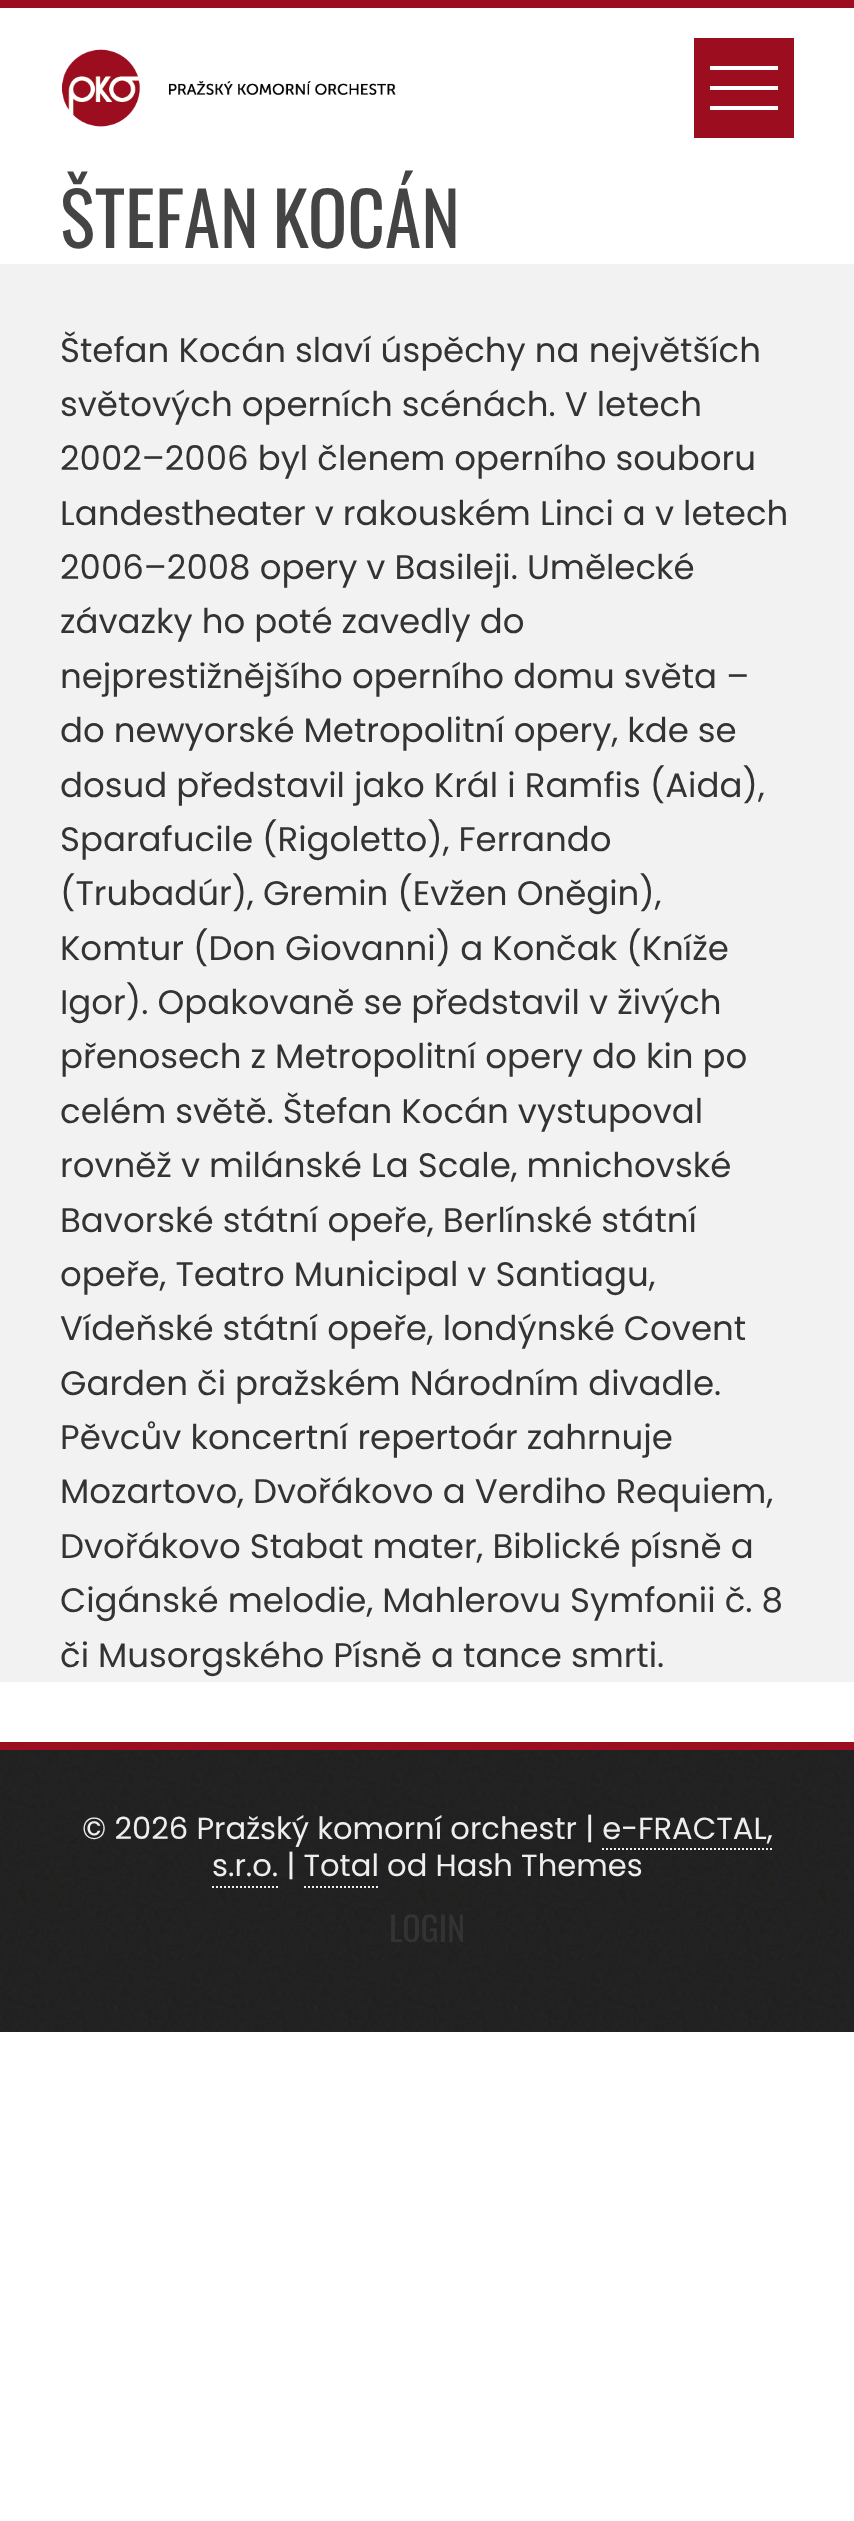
<!DOCTYPE html>
<meta charset="utf-8">
<style>body { margin: 0 } canvas { display: block }</style>
<canvas id="canvas" width="854" height="2521"></canvas>
<script type="module">
  const canvas = document.getElementById("canvas");
  const g = canvas.getContext("2d");
  g.miterLimit = 4;
  g.fontKerning = "normal";
  function drawText(s, x, y, [font, color]) {
    g.font = font;
    g.fillStyle = color;
    g.fillText(s, x, y);
  }
  function fillBox(x, y, w, h, color) {
    g.fillStyle = color;
    g.fillRect(x, y, w, h);
  }
  async function drawPicture(src, x, y, w, h) {
    const img = new Image();
    img.src = src;
    await img.decode();
    g.drawImage(img, x, y, w, h);
  }

  const s1 = ["73.5px Oswald", "#444444"];
  const s2 = ["34px Poppins", "#333333"];
  const s3 = ["30.6px Poppins", "#EEEEEE"];
  const s4 = ["34px Oswald", "#333333"];

  fillBox(0, 0, 854, 2521, "#FFFFFF");
  fillBox(0, 0, 854, 8, "#9C0E1F");
  await drawPicture("pic1.png", 62, 49, 334, 78);
  fillBox(694, 38, 100, 100, "#9C0E1F");
  fillBox(710, 66, 68, 4, "#FFFFFF");
  fillBox(710, 106, 68, 4, "#FFFFFF");
  fillBox(710, 86, 68, 4, "#FFFFFF");
  fillBox(0, 264, 854, 1418, "#F2F2F2");
  g.wordSpacing = "-3px";
  drawText("ŠTEFAN KOCÁN", 60, 248, s1);
  g.wordSpacing = "0px";
  drawText("Štefan Kocán slaví úspěchy na největších", 60, 362, s2);
  drawText("světových operních scénách. V letech", 60, 416, s2);
  drawText("2002–2006 byl členem operního souboru", 60, 470, s2);
  drawText("Landestheater v rakouském Linci a v letech", 60, 525, s2);
  drawText("2006–2008 opery v Basileji. Umělecké", 60, 579, s2);
  drawText("závazky ho poté zavedly do", 60, 633, s2);
  drawText("nejprestižnějšího operního domu světa –", 60, 688, s2);
  drawText("do newyorské Metropolitní opery, kde se", 60, 742, s2);
  drawText("dosud představil jako Král i Ramfis (Aida),", 60, 797, s2);
  drawText("Sparafucile (Rigoletto), Ferrando", 60, 851, s2);
  drawText("(Trubadúr), Gremin (Evžen Oněgin),", 60, 905, s2);
  drawText("Komtur (Don Giovanni) a Končak (Kníže", 60, 960, s2);
  drawText("Igor). Opakovaně se představil v živých", 60, 1014, s2);
  drawText("přenosech z Metropolitní opery do kin po", 60, 1068, s2);
  drawText("celém světě. Štefan Kocán vystupoval", 60, 1123, s2);
  drawText("rovněž v milánské La Scale, mnichovské", 60, 1177, s2);
  drawText("Bavorské státní opeře, Berlínské státní", 60, 1232, s2);
  drawText("opeře, Teatro Municipal v Santiagu,", 60, 1286, s2);
  drawText("Vídeňské státní opeře, londýnské Covent", 60, 1340, s2);
  drawText("Garden či pražském Národním divadle.", 60, 1395, s2);
  drawText("Pěvcův koncertní repertoár zahrnuje", 60, 1449, s2);
  drawText("Mozartovo, Dvořákovo a Verdiho Requiem,", 60, 1503, s2);
  drawText("Dvořákovo Stabat mater, Biblické písně a", 60, 1558, s2);
  drawText("Cigánské melodie, Mahlerovu Symfonii č. 8", 60, 1612, s2);
  drawText("či Musorgského Písně a tance smrti.", 60, 1667, s2);
  await drawPicture("pic2.png", 0, 1750, 854, 282);
  fillBox(0, 1742, 854, 8, "#9C0E1F");
  drawText("© 2026 Pražský komorní orchestr | e-FRACTAL,", 82, 1839, s3);
  drawText("s.r.o. | Total od Hash Themes", 212, 1876, s3);
  g.beginPath();
  g.moveTo(602, 1849);
  g.lineTo(772, 1849);
  g.strokeStyle = "#EEEEEE";
  g.lineWidth = 2;
  g.setLineDash([2, 2]);
  g.stroke();
  g.beginPath();
  g.moveTo(212, 1887);
  g.lineTo(278, 1887);
  g.stroke();
  g.beginPath();
  g.moveTo(304, 1887);
  g.lineTo(378, 1887);
  g.stroke();
  drawText("LOGIN", 389, 1942, s4);
</script>
